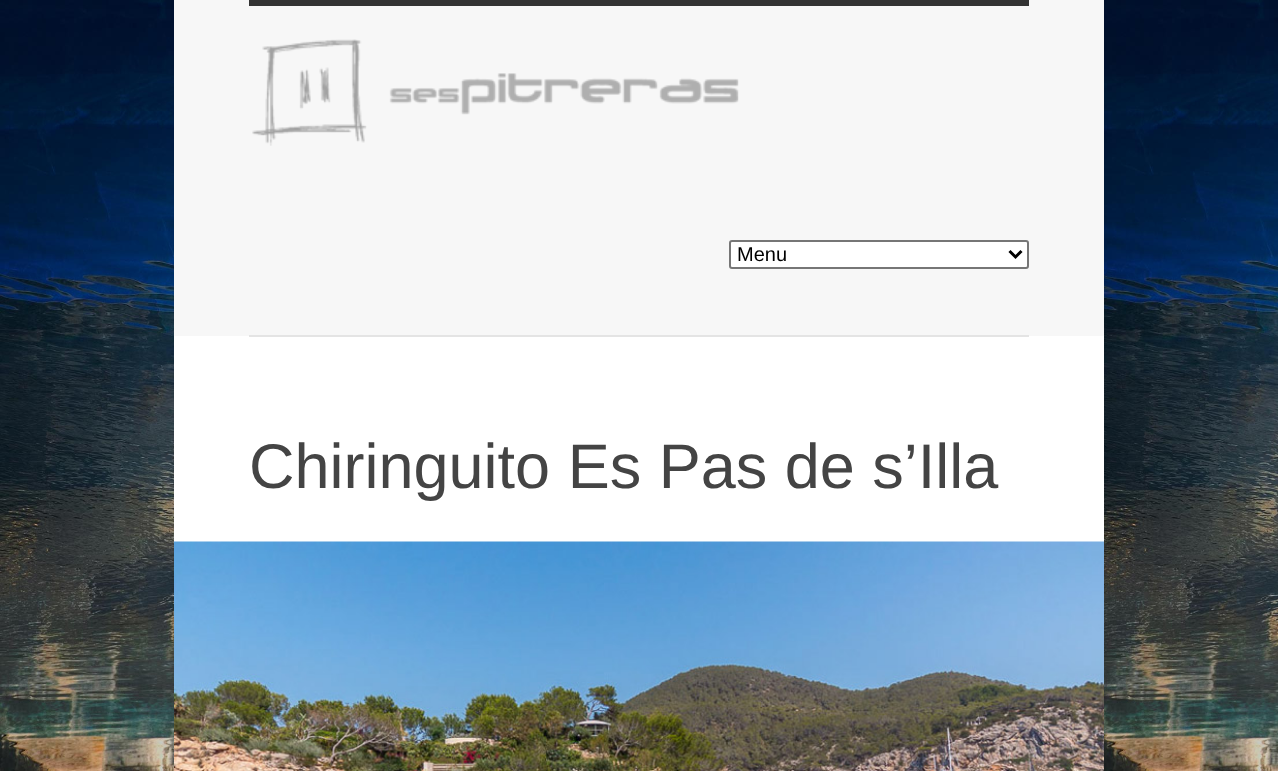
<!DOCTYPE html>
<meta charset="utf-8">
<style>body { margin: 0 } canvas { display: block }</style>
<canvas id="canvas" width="1278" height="771"></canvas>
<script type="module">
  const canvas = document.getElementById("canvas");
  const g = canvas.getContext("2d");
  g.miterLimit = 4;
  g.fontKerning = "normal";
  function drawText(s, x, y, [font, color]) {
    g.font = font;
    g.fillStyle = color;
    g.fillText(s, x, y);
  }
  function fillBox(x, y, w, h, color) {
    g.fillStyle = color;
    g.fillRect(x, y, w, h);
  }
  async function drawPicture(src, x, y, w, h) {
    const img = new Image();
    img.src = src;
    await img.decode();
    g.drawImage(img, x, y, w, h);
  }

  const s1 = ["20px Liberation Sans", "#000000"];
  const s2 = ["63px Liberation Sans", "#444444"];

  fillBox(0, 0, 1278, 771, "#FFFFFF");
  await drawPicture("pic1.png", 0, 0, 1278, 771);
  fillBox(174, 336, 930, 206, "#FFFFFF");
  fillBox(174, 0, 930, 336, "#F7F7F7");
  fillBox(249, 0, 780, 6, "#333333");
  fillBox(249, 335, 780, 2, "#E4E4E4");
  await drawPicture("pic2.png", 252, 39, 487, 107);
  g.fillStyle = "#FFFFFF";
  g.beginPath();
  g.roundRect(730, 241, 298, 27, 2);
  g.fill();
  g.strokeStyle = "#767676";
  g.lineWidth = 2;
  g.stroke();
  g.beginPath();
  g.moveTo(1009.5, 251);
  g.lineTo(1015.5, 257);
  g.lineTo(1021.5, 251);
  g.strokeStyle = "#000000";
  g.lineWidth = 3;
  g.stroke();
  drawText("Menu", 737, 261, s1);
  drawText("Chiringuito Es Pas de s’Illa", 249, 488, s2);
  await drawPicture("pic3.png", 174, 541, 930, 230);
</script>
